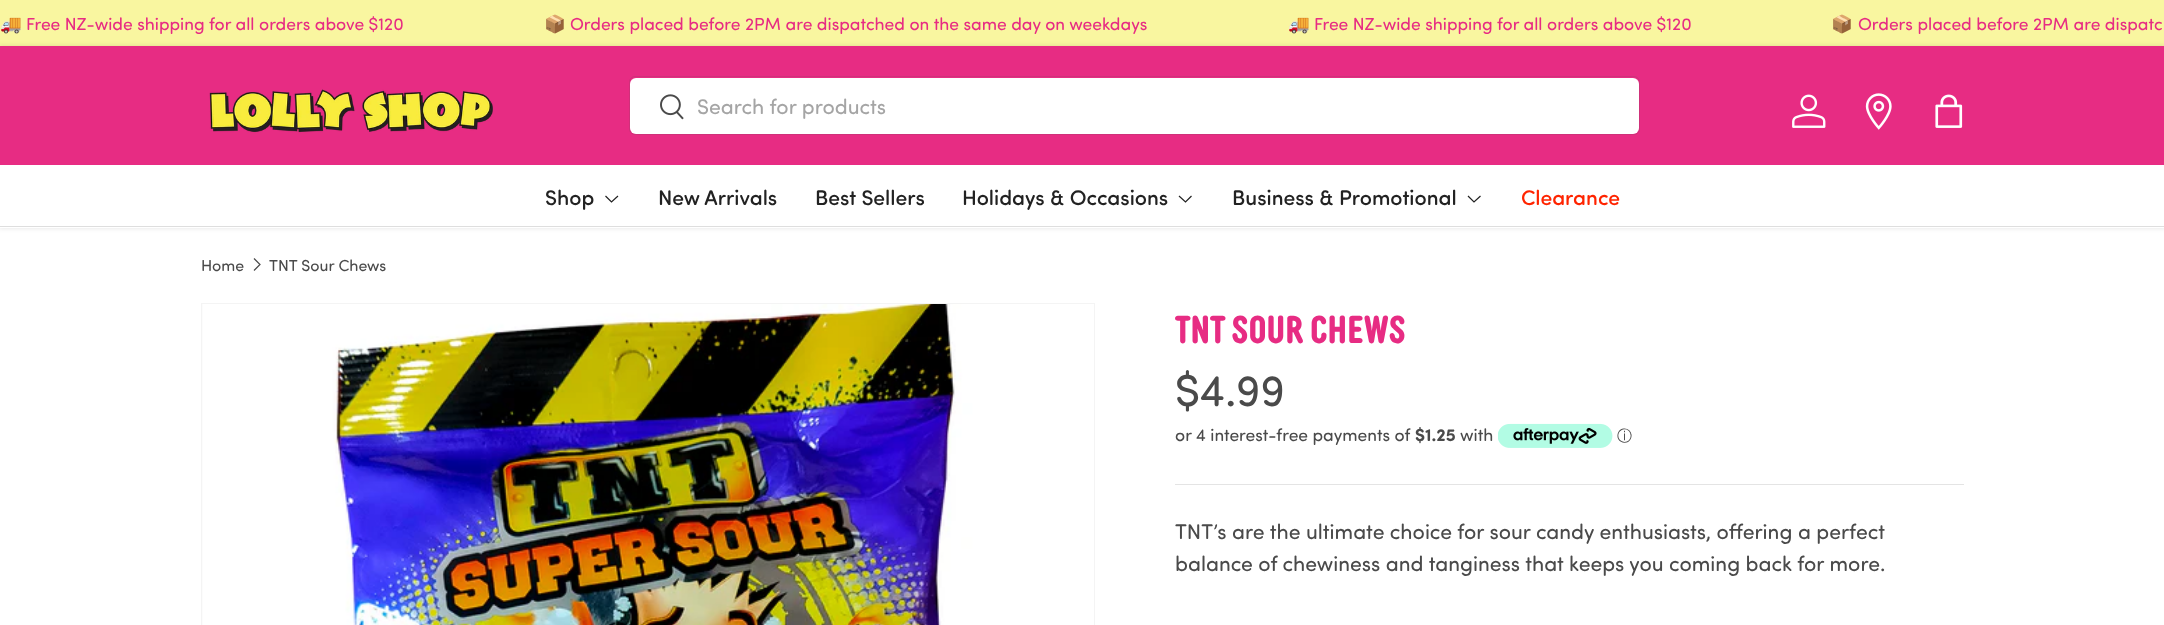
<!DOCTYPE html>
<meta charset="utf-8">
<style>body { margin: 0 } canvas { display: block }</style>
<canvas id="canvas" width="2164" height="625"></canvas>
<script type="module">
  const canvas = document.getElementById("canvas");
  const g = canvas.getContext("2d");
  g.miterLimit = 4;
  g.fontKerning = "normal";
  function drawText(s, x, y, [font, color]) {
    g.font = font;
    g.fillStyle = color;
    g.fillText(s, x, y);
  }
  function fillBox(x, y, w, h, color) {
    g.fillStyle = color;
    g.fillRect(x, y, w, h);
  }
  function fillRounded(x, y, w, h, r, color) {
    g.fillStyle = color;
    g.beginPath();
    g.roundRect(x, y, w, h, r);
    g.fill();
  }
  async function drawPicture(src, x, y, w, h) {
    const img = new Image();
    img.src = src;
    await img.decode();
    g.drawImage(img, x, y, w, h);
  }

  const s1 = ["17.5px Noto Color Emoji", "#E72C83"];
  const s2 = ["17.5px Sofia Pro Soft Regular", "#E72C83"];
  const s3 = ["21.25px Sofia Pro Soft Regular", "#A5A5A5"];
  const s4 = ["500 21.25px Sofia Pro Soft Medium", "#222222"];
  const s5 = ["500 21.25px Sofia Pro Soft Medium", "#FF2400"];
  const s6 = ["16px Sofia Pro Soft Regular", "#4A4A4A"];
  const s7 = ["bold 37.75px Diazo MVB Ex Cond", "#E72C83"];
  const s8 = ["45px Sofia Pro Soft Regular", "#4A4A4A"];
  const s9 = ["17.5px Sofia Pro Soft Regular", "#4A4A4A"];
  const s10 = ["bold 17.5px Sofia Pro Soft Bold", "#4A4A4A"];
  const s11 = ["500 15px WenQuanYi Zen Hei", "#4A4A4A"];
  const s12 = ["21.25px Sofia Pro Soft Regular", "#4A4A4A"];

  fillBox(0, 0, 2164, 625, "#FFFFFF");
  fillBox(0, 0, 2164, 46, "#F9F6A0");
  drawText("🚚", 0, 30, s1);
  drawText("Free NZ-wide shipping for all orders above $120", 26, 30, s2);
  drawText("📦", 544, 30, s1);
  drawText("Orders placed before 2PM are dispatched on the same day on weekdays", 570, 30, s2);
  drawText("🚚", 1288, 30, s1);
  drawText("Free NZ-wide shipping for all orders above $120", 1314, 30, s2);
  drawText("📦", 1831, 30, s1);
  drawText("Orders placed before 2PM are dispatc", 1858, 30, s2);
  g.fillStyle = "rgba(0, 0, 0, 0.08)";
  g.filter = "blur(2px)";
  g.beginPath();
  g.rect(-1, 45, 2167, 184);
  g.fill();
  g.filter = "none";
  fillBox(0, 46, 2164, 119, "#E72C83");
  await drawPicture("pic1.png", 209, 89, 284, 44);
  g.beginPath();
  g.roundRect(629.5, 76.5, 1010, 58, 5.5);
  g.strokeStyle = "#CF317A";
  g.stroke();
  fillRounded(630, 78, 1009, 56, 6, "#FFFFFF");
  await drawPicture("pic2.png", 660, 94, 24, 26);
  drawText("Search for products", 697, 114, s3);
  await drawPicture("pic3.png", 1792, 94, 34, 34);
  await drawPicture("pic4.png", 1865, 93, 27, 37);
  await drawPicture("pic5.png", 1935, 94, 28, 34);
  fillBox(0, 165, 2164, 63, "#FFFFFF");
  drawText("Shop", 545, 205, s4);
  g.beginPath();
  g.moveTo(618, 196);
  g.lineTo(611.5, 202);
  g.lineTo(605.5, 196);
  g.strokeStyle = "#222222";
  g.lineWidth = 1.2;
  g.stroke();
  drawText("New Arrivals", 658, 205, s4);
  drawText("Best Sellers", 815, 205, s4);
  drawText("Holidays & Occasions", 962, 205, s4);
  g.beginPath();
  g.moveTo(1191.5, 196);
  g.lineTo(1185.5, 202);
  g.lineTo(1179, 196);
  g.stroke();
  drawText("Business & Promotional", 1232, 205, s4);
  g.beginPath();
  g.moveTo(1480.5, 196);
  g.lineTo(1474, 202);
  g.lineTo(1468, 196);
  g.stroke();
  drawText("Clearance", 1521, 205, s5);
  fillBox(0, 226, 2164, 1, "#DEDEDE");
  drawText("Home", 201, 271, s6);
  g.beginPath();
  g.moveTo(254, 258.5);
  g.lineTo(260, 264.5);
  g.lineTo(254, 270.5);
  g.strokeStyle = "#4A4A4A";
  g.stroke();
  drawText("TNT Sour Chews", 269, 271, s6);
  fillBox(201, 303, 894, 322, "#F4F4F4");
  await drawPicture("pic6.png", 202, 304, 892, 321);
  drawText("TNT SOUR CHEWS", 1175, 343, s7);
  drawText("$4.99", 1175, 406, s8);
  drawText("or 4 interest-free payments of", 1175, 441, s9);
  drawText("$1.25", 1415, 441, s10);
  drawText("with", 1460, 441, s9);
  await drawPicture("pic7.png", 1498, 423, 115, 25);
  drawText("ⓘ", 1617, 441, s11);
  fillBox(1175, 484, 789, 1, "#E4E4E4");
  drawText("TNT’s are the ultimate choice for sour candy enthusiasts, offering a perfect", 1175, 539, s12);
  drawText("balance of chewiness and tanginess that keeps you coming back for more.", 1175, 571, s12);
</script>
